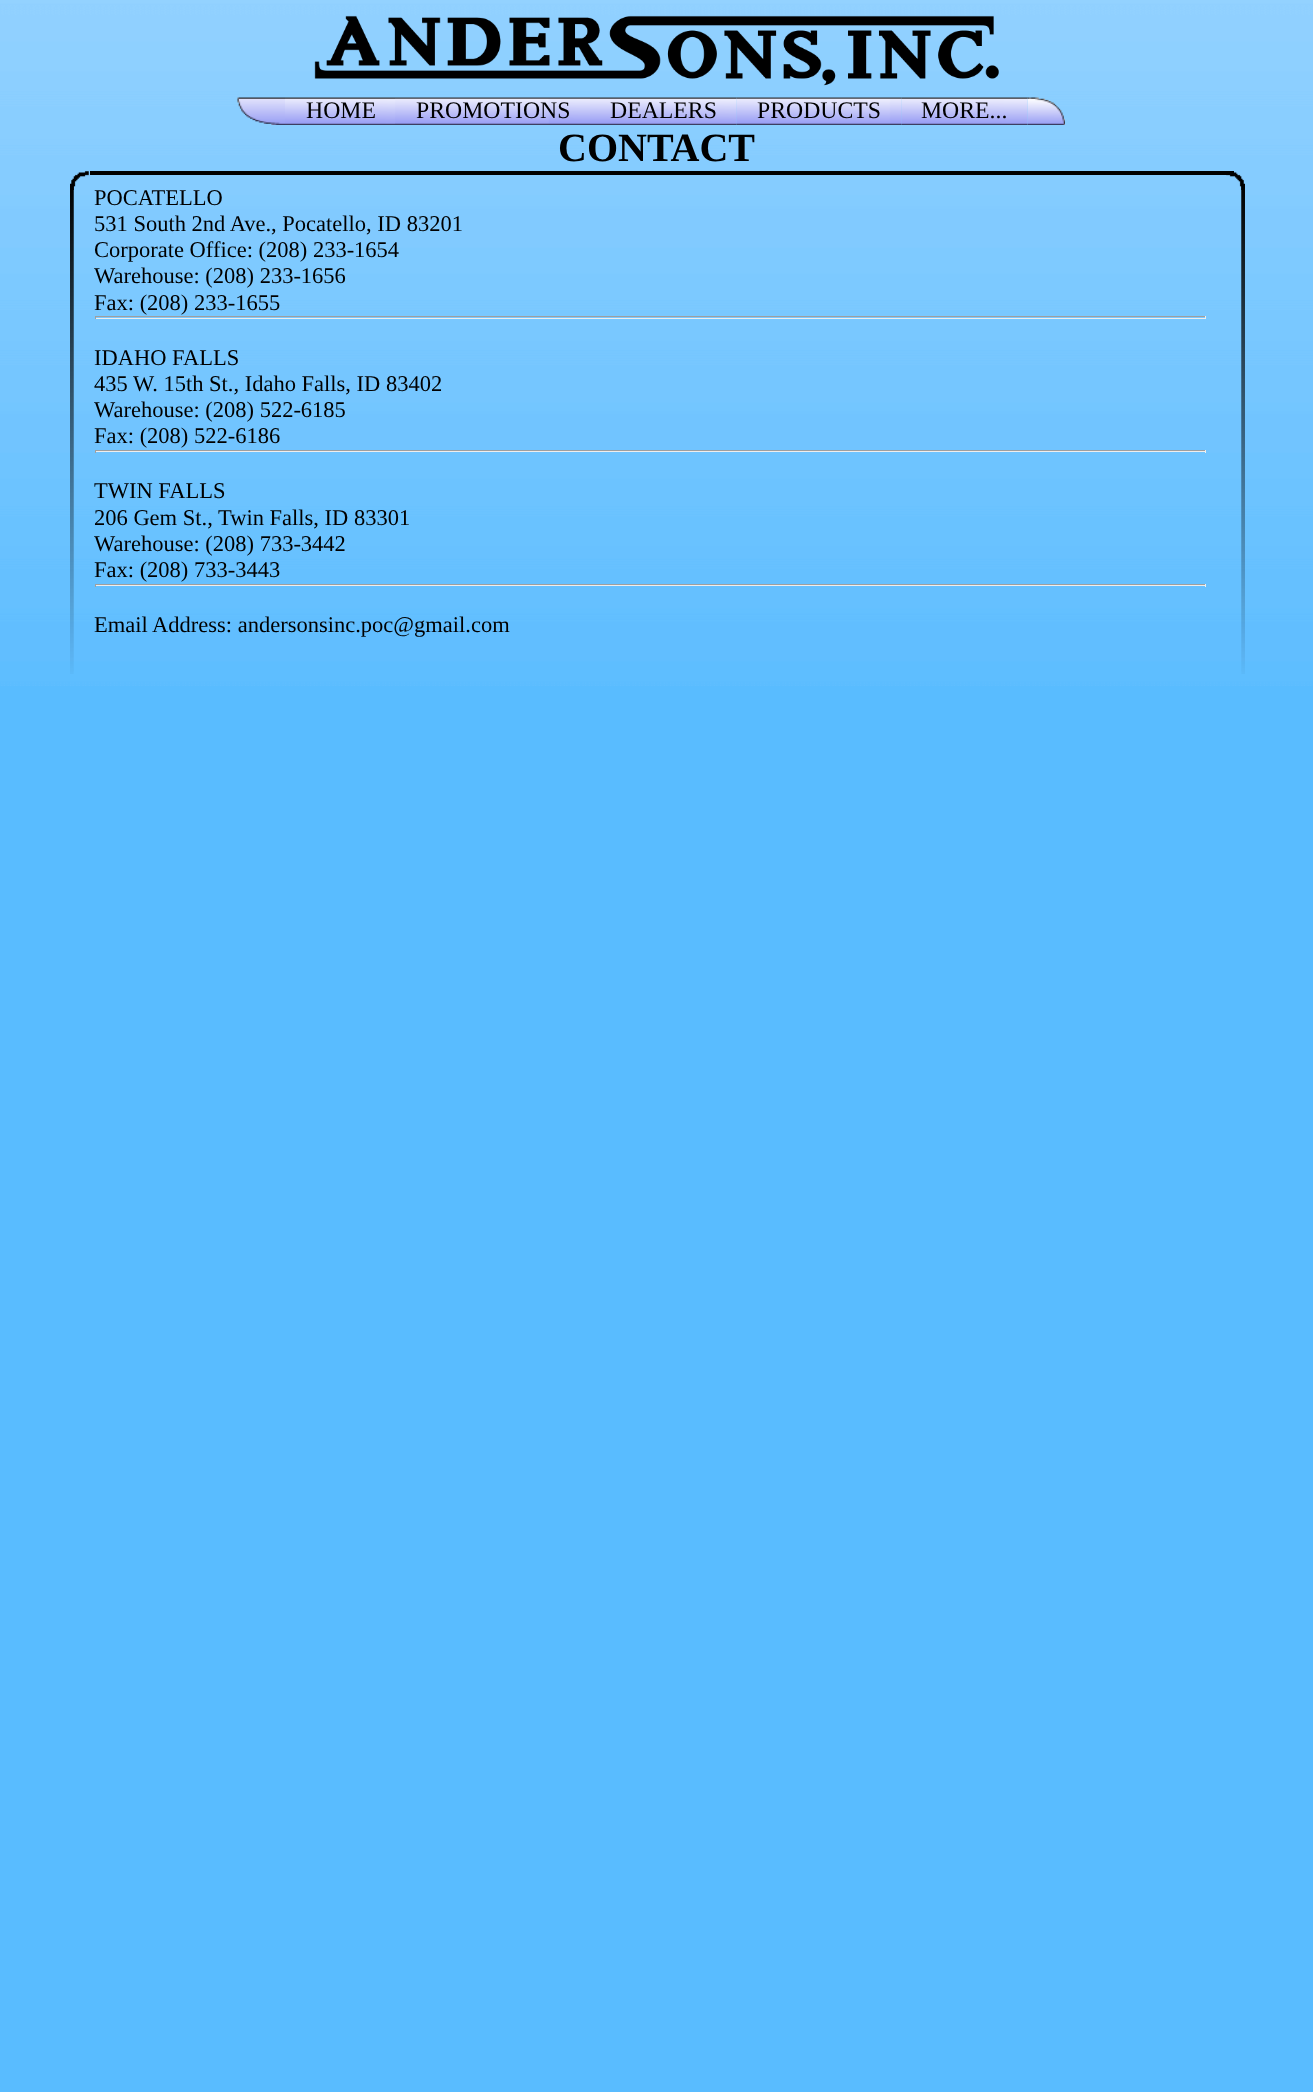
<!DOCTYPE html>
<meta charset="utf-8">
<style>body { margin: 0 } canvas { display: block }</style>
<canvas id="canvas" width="1313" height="2092"></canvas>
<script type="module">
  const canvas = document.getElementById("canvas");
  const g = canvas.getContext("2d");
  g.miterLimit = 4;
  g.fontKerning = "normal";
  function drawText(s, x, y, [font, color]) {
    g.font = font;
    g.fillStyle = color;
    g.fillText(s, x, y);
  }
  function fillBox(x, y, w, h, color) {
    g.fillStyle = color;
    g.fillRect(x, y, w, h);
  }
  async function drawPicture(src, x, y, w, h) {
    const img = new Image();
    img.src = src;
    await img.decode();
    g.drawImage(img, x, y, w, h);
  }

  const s1 = ["23.75px Liberation Serif", "#000000"];
  const s2 = ["bold 40px Liberation Serif", "#000000"];
  const s3 = ["22.5px Liberation Serif", "#000000"];

  fillBox(0, 0, 1313, 2092, "#59BCFF");
  await drawPicture("pic1.png", 0, 0, 1313, 686);
  await drawPicture("pic2.png", 314, 15, 685, 71);
  await drawPicture("pic3.png", 237, 97, 48, 28);
  await drawPicture("pic4.png", 285, 97, 110, 28);
  drawText("HOME", 306, 118, s1);
  await drawPicture("pic5.png", 395, 97, 195, 28);
  drawText("PROMOTIONS", 416, 118, s1);
  await drawPicture("pic6.png", 590, 97, 147, 28);
  drawText("DEALERS", 610, 118, s1);
  await drawPicture("pic7.png", 736, 97, 166, 28);
  drawText("PRODUCTS", 757, 118, s1);
  await drawPicture("pic9.png", 1027, 97, 38, 28);
  await drawPicture("pic8.png", 901, 97, 127, 28);
  drawText("MORE...", 921, 118, s1);
  drawText("CONTACT", 558, 161, s2);
  await drawPicture("pic10.png", 70, 171, 19, 19);
  await drawPicture("pic11.png", 70, 183, 4, 491);
  fillBox(90, 171, 1144, 4, "#000000");
  drawText("POCATELLO", 94, 205, s3);
  drawText("531 South 2nd Ave., Pocatello, ID 83201", 94, 231, s3);
  drawText("Corporate Office: (208) 233-1654", 94, 257, s3);
  drawText("Warehouse: (208) 233-1656", 94, 283, s3);
  drawText("Fax: (208) 233-1655", 94, 310, s3);
  fillBox(95, 316, 1111, 1, "#9F9F9F");
  fillBox(1205, 316, 1, 3, "#EEEEEE");
  fillBox(95, 318, 1111, 1, "#EEEEEE");
  fillBox(95, 316, 1, 3, "#9F9F9F");
  drawText("IDAHO FALLS", 94, 365, s3);
  drawText("435 W. 15th St., Idaho Falls, ID 83402", 94, 391, s3);
  drawText("Warehouse: (208) 522-6185", 94, 417, s3);
  drawText("Fax: (208) 522-6186", 94, 443, s3);
  fillBox(95, 450, 1111, 1, "#9F9F9F");
  fillBox(1205, 450, 1, 3, "#EEEEEE");
  fillBox(95, 451, 1111, 1, "#EEEEEE");
  fillBox(95, 450, 1, 3, "#9F9F9F");
  drawText("TWIN FALLS", 94, 498, s3);
  drawText("206 Gem St., Twin Falls, ID 83301", 94, 525, s3);
  drawText("Warehouse: (208) 733-3442", 94, 551, s3);
  drawText("Fax: (208) 733-3443", 94, 577, s3);
  fillBox(95, 584, 1111, 1, "#9F9F9F");
  fillBox(1205, 584, 1, 3, "#EEEEEE");
  fillBox(95, 585, 1111, 1, "#EEEEEE");
  fillBox(95, 584, 1, 3, "#9F9F9F");
  drawText("Email Address: andersonsinc.poc@gmail.com", 94, 632, s3);
  await drawPicture("pic13.png", 1241, 183, 4, 491);
  await drawPicture("pic12.png", 1226, 172, 18, 18);
</script>
